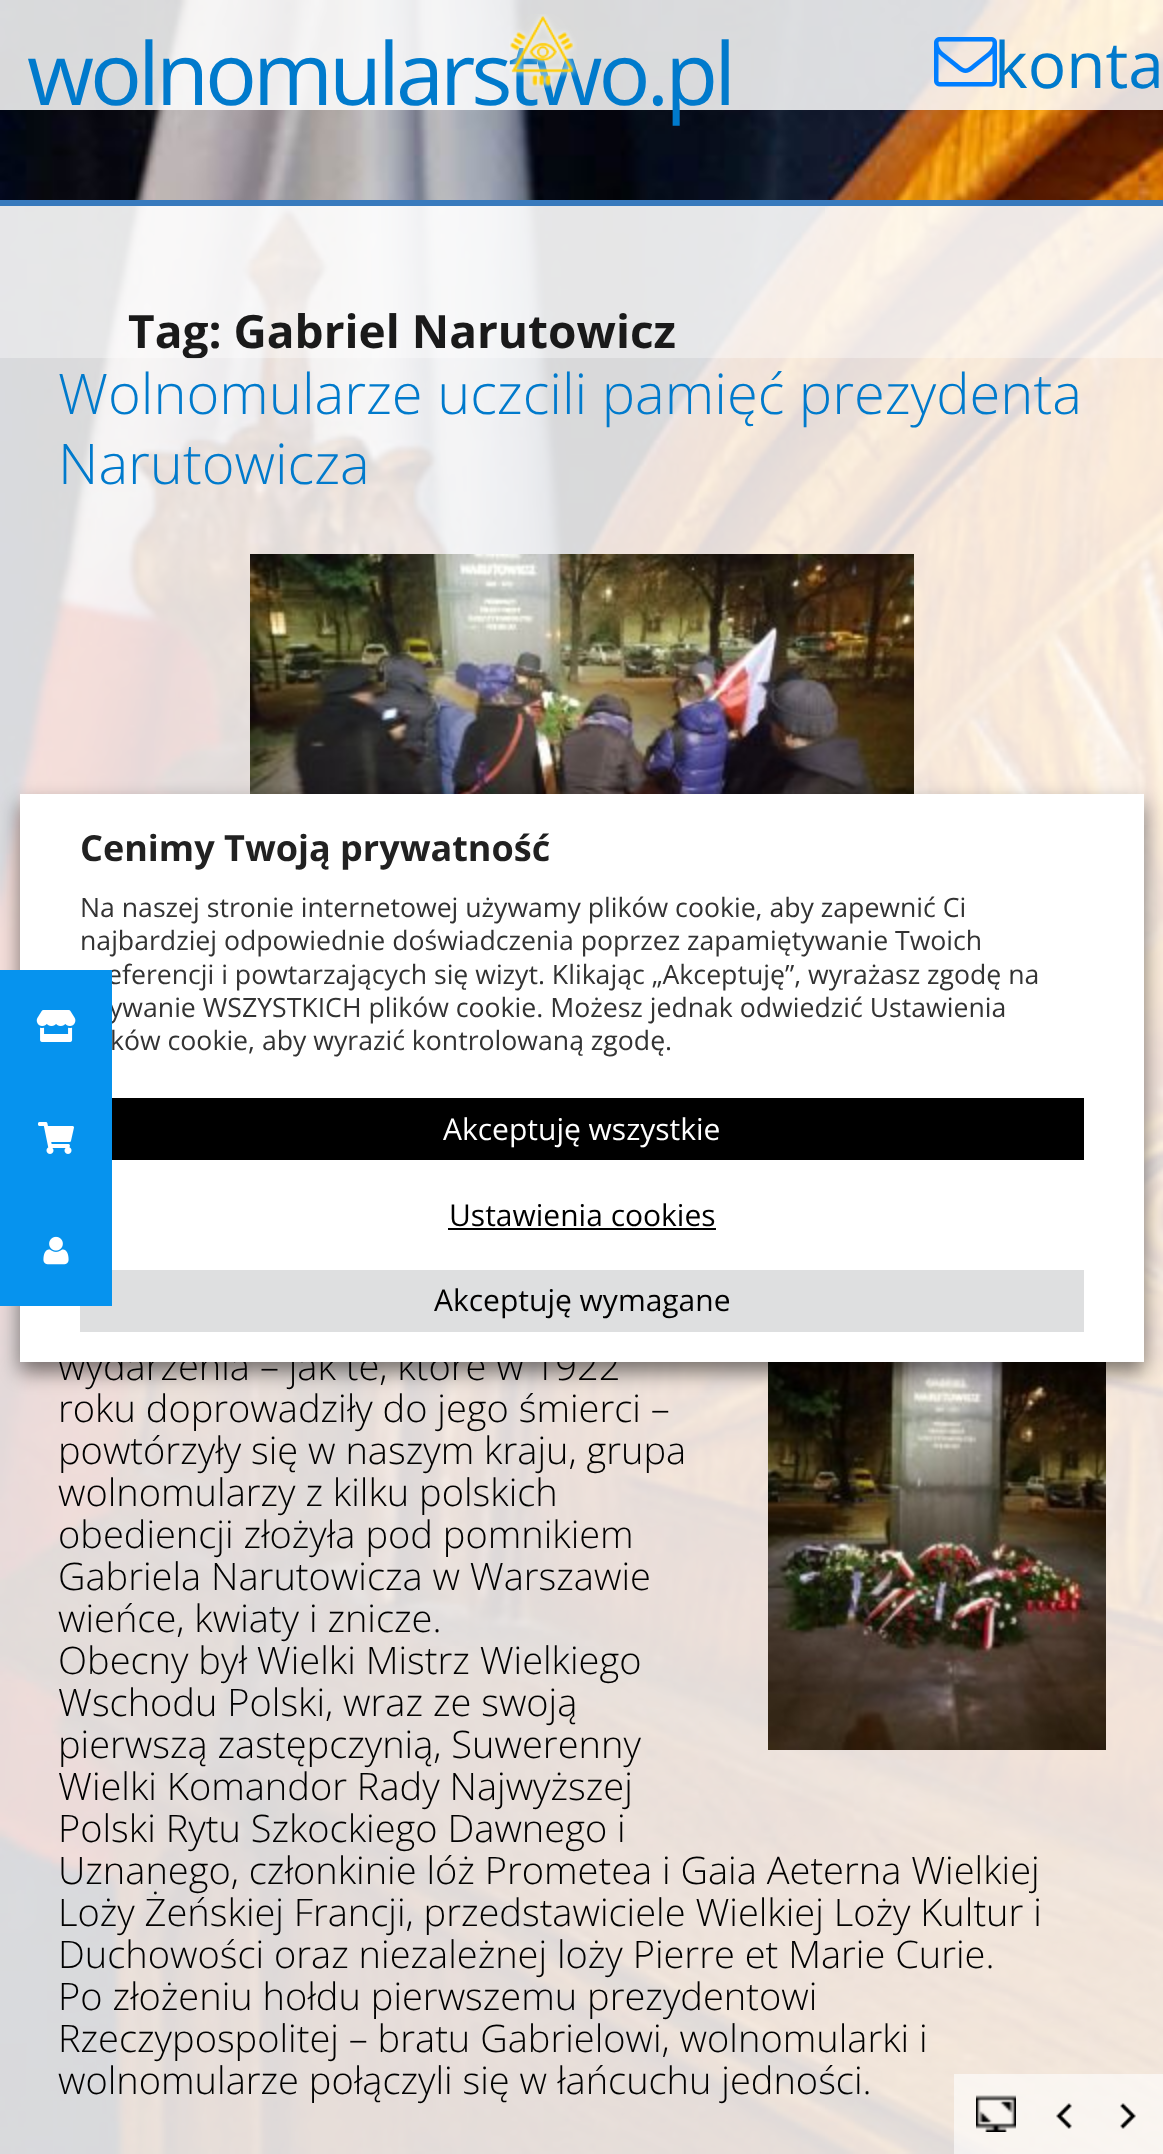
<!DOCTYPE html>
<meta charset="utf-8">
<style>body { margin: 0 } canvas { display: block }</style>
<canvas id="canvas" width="1163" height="2154"></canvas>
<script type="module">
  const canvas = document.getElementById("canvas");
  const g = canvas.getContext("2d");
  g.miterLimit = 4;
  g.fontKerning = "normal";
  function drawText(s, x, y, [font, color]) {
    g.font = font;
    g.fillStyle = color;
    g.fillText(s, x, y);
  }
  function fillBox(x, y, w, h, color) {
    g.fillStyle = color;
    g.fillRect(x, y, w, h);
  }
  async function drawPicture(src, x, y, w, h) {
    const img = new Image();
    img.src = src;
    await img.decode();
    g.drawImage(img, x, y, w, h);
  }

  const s1 = ["86.5px Open Sans", "#007ACC"];
  const s2 = ["64px Open Sans", "#007ACC"];
  const s3 = ["bold 46px Open Sans", "#1A1A1A"];
  const s4 = ["300 56px Open Sans", "#007ACC"];
  const s5 = ["300 38px Open Sans", "#000000"];
  const s6 = ["26.65px Open Sans", "#333333"];
  const s7 = ["bold 36px Open Sans", "#212121"];
  const s8 = ["30px Open Sans", "#FFFFFF"];
  const s9 = ["30px Open Sans", "#000000"];

  fillBox(0, 0, 1163, 2154, "#FFFFFF");
  await drawPicture("pic1.png", 0, 0, 1163, 2154);
  fillBox(0, 0, 1163, 110, "rgba(255, 255, 255, 0.85)");
  g.letterSpacing = "-4px";
  drawText("wolnomularstwo.pl", 27, 105, s1);
  await drawPicture("pic2.png", 509, 14, 68, 74);
  await drawPicture("pic3.png", 934, 37, 63, 50);
  g.letterSpacing = "0px";
  drawText("konta", 994, 88, s2);
  fillBox(0, 200, 1163, 6, "#387ABD");
  fillBox(0, 206, 1163, 152, "rgba(255, 255, 255, 0.9)");
  drawText("Tag: Gabriel Narutowicz", 128, 348, s3);
  fillBox(0, 358, 1163, 1796, "rgba(255, 255, 255, 0.85)");
  drawText("Wolnomularze uczcili pamięć prezydenta", 58, 414, s4);
  drawText("Narutowicza", 58, 484, s4);
  await drawPicture("pic4.png", 250, 554, 664, 240);
  drawText("wydarzenia – jak te, które w 1922", 58, 1380, s5);
  await drawPicture("pic5.png", 768, 1362, 338, 388);
  drawText("roku doprowadziły do jego śmierci –", 58, 1422, s5);
  drawText("powtórzyły się w naszym kraju, grupa", 58, 1464, s5);
  drawText("wolnomularzy z kilku polskich", 58, 1506, s5);
  drawText("obediencji złożyła pod pomnikiem", 58, 1548, s5);
  drawText("Gabriela Narutowicza w Warszawie", 58, 1590, s5);
  drawText("wieńce, kwiaty i znicze.", 58, 1632, s5);
  drawText("Obecny był Wielki Mistrz Wielkiego", 58, 1674, s5);
  drawText("Wschodu Polski, wraz ze swoją", 58, 1716, s5);
  drawText("pierwszą zastępczynią, Suwerenny", 58, 1758, s5);
  drawText("Wielki Komandor Rady Najwyższej", 58, 1800, s5);
  drawText("Polski Rytu Szkockiego Dawnego i", 58, 1842, s5);
  drawText("Uznanego, członkinie lóż Prometea i Gaia Aeterna Wielkiej", 58, 1884, s5);
  drawText("Loży Żeńskiej Francji, przedstawiciele Wielkiej Loży Kultur i", 58, 1926, s5);
  drawText("Duchowości oraz niezależnej loży Pierre et Marie Curie.", 58, 1968, s5);
  drawText("Po złożeniu hołdu pierwszemu prezydentowi", 58, 2010, s5);
  drawText("Rzeczypospolitej – bratu Gabrielowi, wolnomularki i", 58, 2052, s5);
  drawText("wolnomularze połączyli się w łańcuchu jedności.", 58, 2094, s5);
  g.fillStyle = "rgba(0, 0, 0, 0.5)";
  g.filter = "blur(10px)";
  g.beginPath();
  g.rect(20, 804, 1124, 568);
  g.fill();
  g.filter = "none";
  fillBox(20, 794, 1124, 568, "#FFFFFF");
  drawText("eferencji i powtarzających się wizyt. Klikając „Akceptuję”, wyrażasz zgodę na", 107, 984, s6);
  drawText("ywanie WSZYSTKICH plików cookie. Możesz jednak odwiedzić Ustawienia", 109, 1017, s6);
  fillBox(80, 1270, 1004, 62, "#DEDFE0");
  fillBox(0, 970, 112, 336, "#0693EE");
  await drawPicture("pic6.png", 36, 1010, 40, 32);
  await drawPicture("pic7.png", 38, 1122, 36, 32);
  await drawPicture("pic8.png", 43, 1236, 26, 29);
  drawText("Cenimy Twoją prywatność", 80, 861, s7);
  drawText("Na naszej stronie internetowej używamy plików cookie, aby zapewnić Ci", 80, 917, s6);
  drawText("najbardziej odpowiednie doświadczenia poprzez zapamiętywanie Twoich", 80, 950, s6);
  drawText("ków cookie, aby wyrazić kontrolowaną zgodę.", 110, 1050, s6);
  fillBox(112, 1098, 972, 62, "#000000");
  drawText("Akceptuję wszystkie", 443, 1140, s8);
  drawText("Ustawienia cookies", 449, 1226, s9);
  fillBox(448, 1228, 268, 2, "#000000");
  drawText("Akceptuję wymagane", 434, 1311, s9);
  fillBox(954, 2074, 209, 80, "rgba(255, 255, 255, 0.6)");
  await drawPicture("pic9.png", 976, 2095, 40, 37);
  await drawPicture("pic10.png", 1056, 2103, 16, 26);
  await drawPicture("pic11.png", 1120, 2103, 16, 26);
</script>
